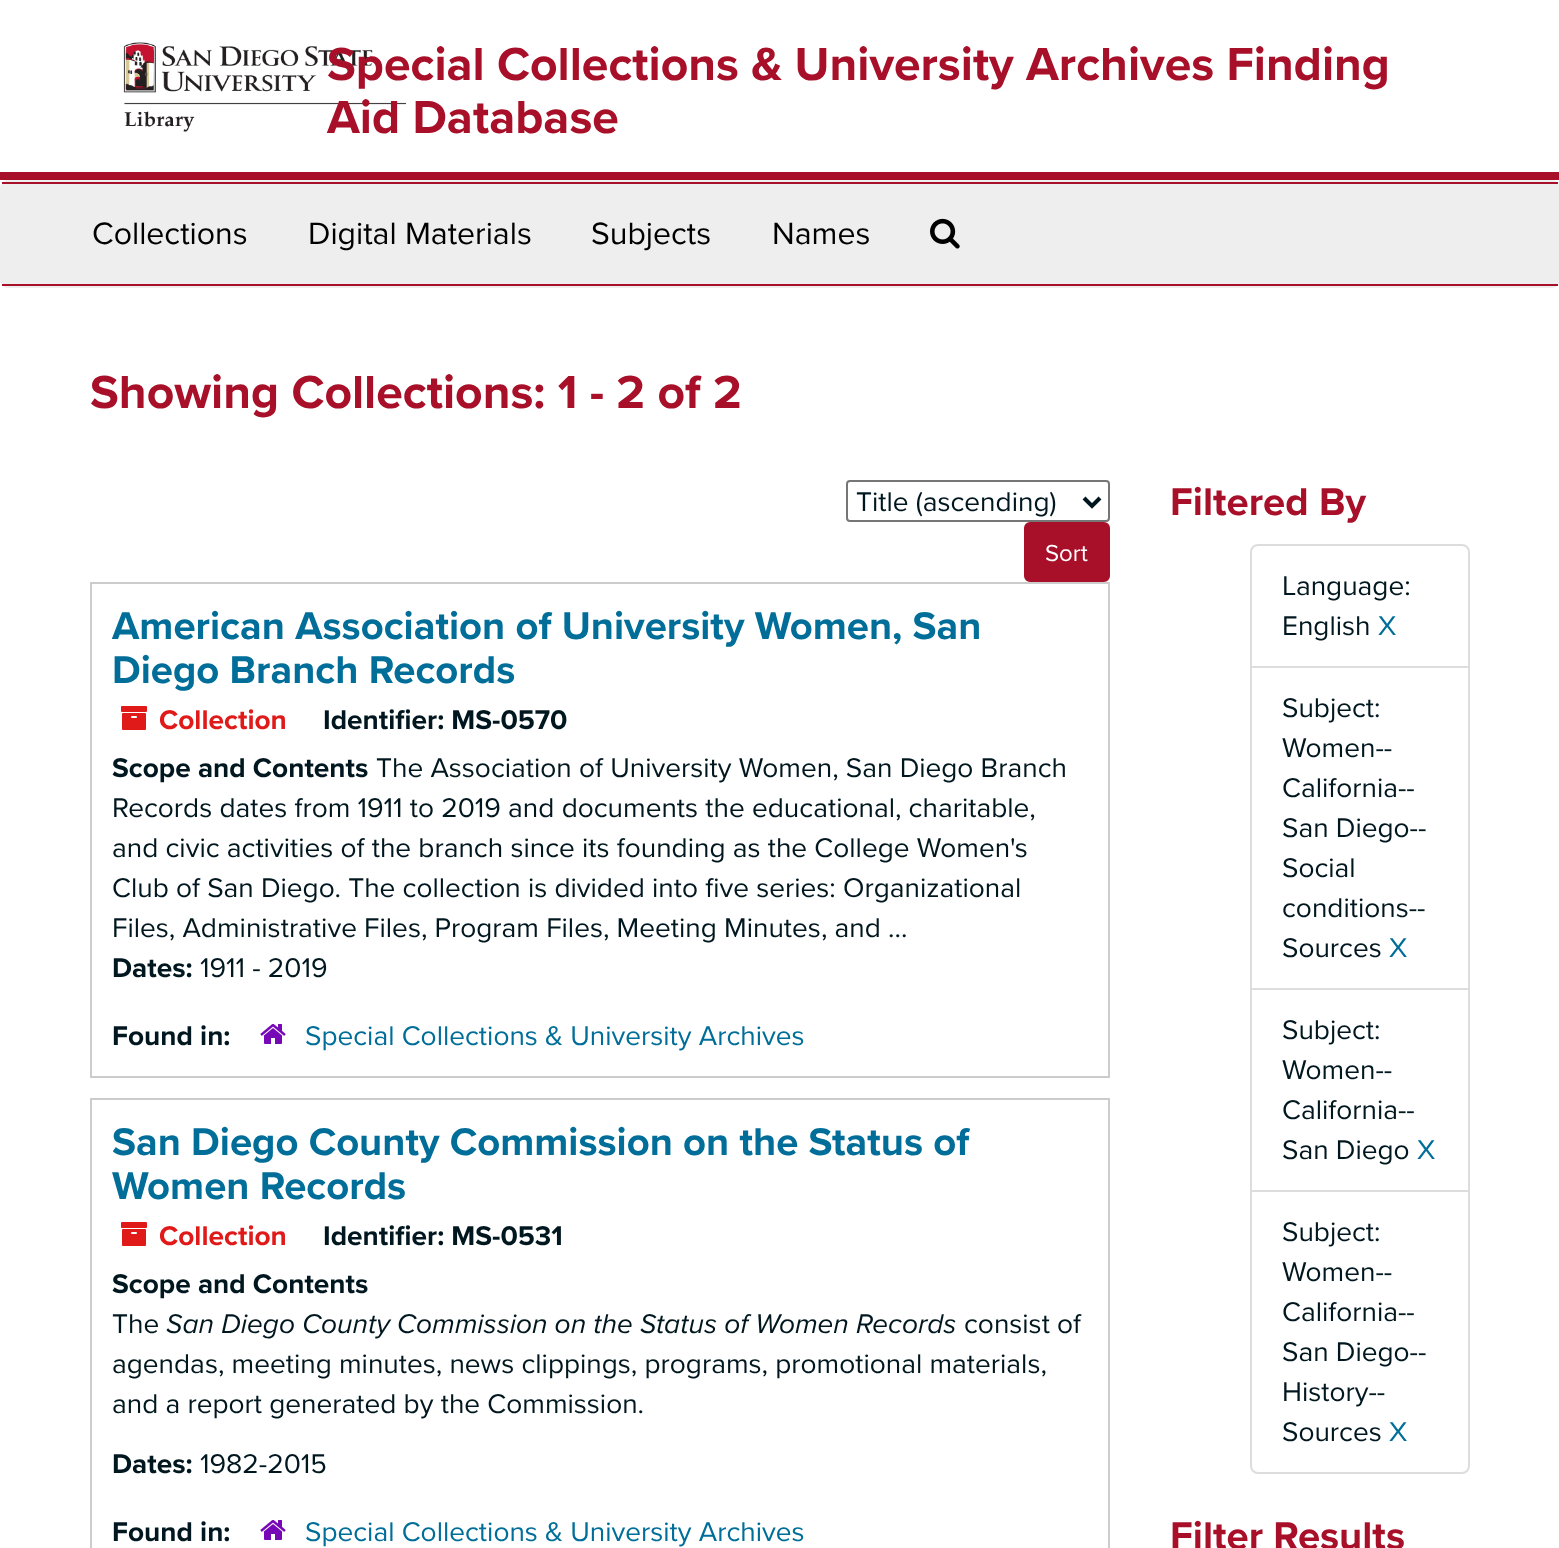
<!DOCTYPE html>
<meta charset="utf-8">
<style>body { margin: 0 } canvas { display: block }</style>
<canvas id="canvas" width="1559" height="1548"></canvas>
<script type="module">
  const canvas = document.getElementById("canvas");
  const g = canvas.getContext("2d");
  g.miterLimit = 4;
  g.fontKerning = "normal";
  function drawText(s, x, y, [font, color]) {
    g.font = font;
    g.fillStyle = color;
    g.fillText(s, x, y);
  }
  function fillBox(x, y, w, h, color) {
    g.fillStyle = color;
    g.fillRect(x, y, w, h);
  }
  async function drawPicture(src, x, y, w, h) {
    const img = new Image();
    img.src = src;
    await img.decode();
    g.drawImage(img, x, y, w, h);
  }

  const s1 = ["bold 48px Proxima Nova", "#A81029"];
  const s2 = ["32px Proxima Nova", "#000000"];
  const s3 = ["28px Proxima Nova", "#00171F"];
  const s4 = ["24px Proxima Nova", "#FFFFFF"];
  const s5 = ["bold 40px Proxima Nova", "#006E99"];
  const s6 = ["bold 28px Proxima Nova", "#E01919"];
  const s7 = ["bold 28px Proxima Nova", "#00171F"];
  const s8 = ["28px Proxima Nova", "#006E99"];
  const s9 = ["italic 28px Proxima Nova", "#00171F"];
  const s10 = ["bold 40px Proxima Nova", "#A81029"];

  fillBox(0, 0, 1559, 1548, "#FFFFFF");
  fillBox(0, 172, 1559, 8, "#A81029");
  await drawPicture("pic1.png", 123, 42, 283, 90);
  drawText("Special Collections & University Archives Finding", 327, 80, s1);
  drawText("Aid Database", 327, 133, s1);
  g.fillStyle = "#EEEEEE";
  g.beginPath();
  g.roundRect(1, 181, 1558, 106, 7);
  g.fill();
  g.strokeStyle = "#EEEEEE";
  g.lineWidth = 2;
  g.stroke();
  fillBox(2, 182, 1556, 2, "#A81029");
  fillBox(2, 284, 1556, 2, "#A81029");
  drawText("Collections", 92, 244, s2);
  drawText("Digital Materials", 308, 244, s2);
  drawText("Subjects", 591, 244, s2);
  drawText("Names", 772, 244, s2);
  await drawPicture("pic2.png", 930, 218, 30, 31);
  drawText("Showing Collections: 1 - 2 of 2", 90, 408, s1);
  g.beginPath();
  g.roundRect(847, 481, 262, 40, 3);
  g.strokeStyle = "#767676";
  g.stroke();
  g.beginPath();
  g.moveTo(1084, 498);
  g.lineTo(1092, 506);
  g.lineTo(1100, 498);
  g.strokeStyle = "#00171F";
  g.lineWidth = 4;
  g.stroke();
  drawText("Title (ascending)", 856, 511, s3);
  g.fillStyle = "#A81029";
  g.beginPath();
  g.roundRect(1025, 523, 84, 58, 5);
  g.fill();
  g.strokeStyle = "#A81029";
  g.lineWidth = 2;
  g.stroke();
  drawText("Sort", 1045, 561, s4);
  g.strokeStyle = "#CCCCCC";
  g.strokeRect(91, 583, 1018, 494);
  drawText("American Association of University Women, San", 112, 639, s5);
  drawText("Diego Branch Records", 112, 683, s5);
  await drawPicture("pic3.png", 121, 706, 26, 24);
  drawText("Collection", 159, 729, s6);
  drawText("Identifier: MS-0570", 323, 729, s7);
  drawText("Scope and Contents", 112, 777, s7);
  drawText("The Association of University Women, San Diego Branch", 376, 777, s3);
  drawText("Records dates from 1911 to 2019 and documents the educational, charitable,", 112, 817, s3);
  drawText("and civic activities of the branch since its founding as the College Women's", 112, 857, s3);
  drawText("Club of San Diego. The collection is divided into five series: Organizational", 112, 897, s3);
  drawText("Files, Administrative Files, Program Files, Meeting Minutes, and ...", 112, 937, s3);
  drawText("Dates:", 112, 977, s7);
  drawText("1911 - 2019", 200, 977, s3);
  drawText("Found in:", 112, 1045, s7);
  await drawPicture("pic4.png", 260, 1024, 26, 20);
  drawText("Special Collections & University Archives", 305, 1045, s8);
  g.strokeRect(91, 1099, 1018, 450);
  drawText("San Diego County Commission on the Status of", 112, 1155, s5);
  drawText("Women Records", 112, 1199, s5);
  await drawPicture("pic3.png", 121, 1222, 26, 24);
  drawText("Collection", 159, 1245, s6);
  drawText("Identifier: MS-0531", 323, 1245, s7);
  drawText("Scope and Contents", 112, 1293, s7);
  drawText("The", 112, 1333, s3);
  drawText("San Diego County Commission on the Status of Women Records", 166, 1333, s9);
  drawText("consist of", 964, 1333, s3);
  drawText("agendas, meeting minutes, news clippings, programs, promotional materials,", 112, 1373, s3);
  drawText("and a report generated by the Commission.", 112, 1413, s3);
  drawText("Dates:", 112, 1473, s7);
  drawText("1982-2015", 200, 1473, s3);
  drawText("Found in:", 112, 1541, s7);
  await drawPicture("pic4.png", 260, 1520, 26, 20);
  drawText("Special Collections & University Archives", 305, 1541, s8);
  drawText("Filtered By", 1170, 515, s10);
  g.beginPath();
  g.roundRect(1251, 545, 218, 122, [7, 7, 0, 0]);
  g.strokeStyle = "#DDDDDD";
  g.stroke();
  drawText("Language:", 1282, 595, s3);
  drawText("English", 1282, 635, s3);
  drawText("X", 1378, 635, s8);
  g.strokeRect(1251, 667, 218, 322);
  drawText("Subject:", 1282, 717, s3);
  drawText("Women--", 1282, 757, s3);
  drawText("California--", 1282, 797, s3);
  drawText("San Diego--", 1282, 837, s3);
  drawText("Social", 1282, 877, s3);
  drawText("conditions--", 1282, 917, s3);
  drawText("Sources", 1282, 957, s3);
  drawText("X", 1389, 957, s8);
  g.strokeRect(1251, 989, 218, 202);
  drawText("Subject:", 1282, 1039, s3);
  drawText("Women--", 1282, 1079, s3);
  drawText("California--", 1282, 1119, s3);
  drawText("San Diego", 1282, 1159, s3);
  drawText("X", 1417, 1159, s8);
  g.fillStyle = "#FFFFFF";
  g.beginPath();
  g.roundRect(1251, 1191, 218, 282, [0, 0, 7, 7]);
  g.fill();
  g.stroke();
  drawText("Subject:", 1282, 1241, s3);
  drawText("Women--", 1282, 1281, s3);
  drawText("California--", 1282, 1321, s3);
  drawText("San Diego--", 1282, 1361, s3);
  drawText("History--", 1282, 1401, s3);
  drawText("Sources", 1282, 1441, s3);
  drawText("X", 1389, 1441, s8);
  drawText("Filter Results", 1170, 1549, s10);
</script>
